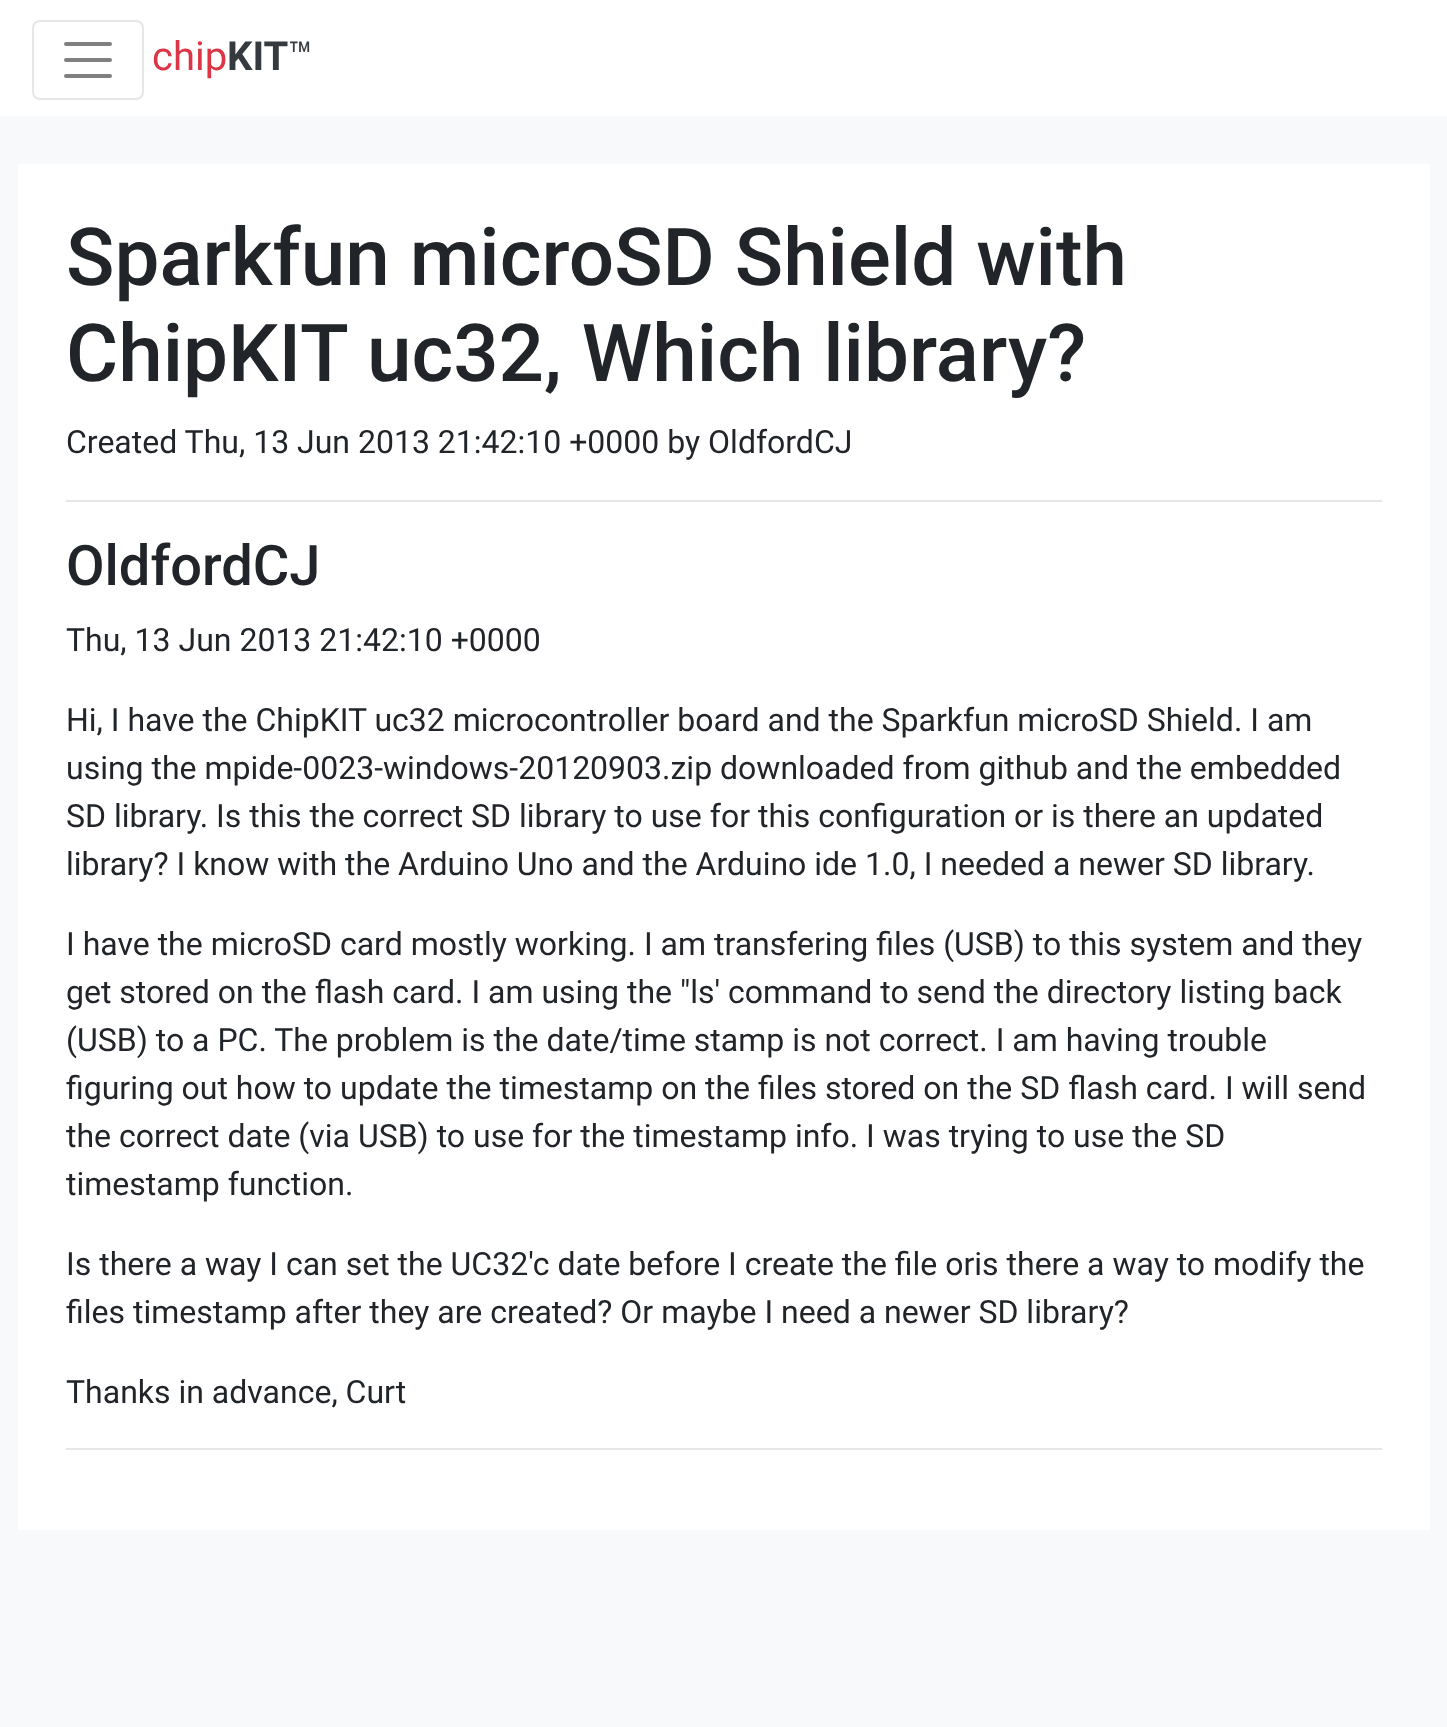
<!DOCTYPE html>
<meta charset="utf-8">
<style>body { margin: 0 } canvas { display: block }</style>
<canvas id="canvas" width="1447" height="1727"></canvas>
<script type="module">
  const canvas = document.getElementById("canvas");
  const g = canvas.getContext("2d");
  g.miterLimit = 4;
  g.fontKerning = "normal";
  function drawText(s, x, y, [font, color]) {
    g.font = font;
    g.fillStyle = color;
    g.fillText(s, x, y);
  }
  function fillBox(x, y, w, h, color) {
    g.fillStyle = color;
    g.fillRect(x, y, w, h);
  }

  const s1 = ["40px Roboto", "#DC3545"];
  const s2 = ["bold 40px Roboto", "#343A40"];
  const s3 = ["40px Roboto", "#343A40"];
  const s4 = ["500 80px Roboto", "#212529"];
  const s5 = ["32px Roboto", "#212529"];
  const s6 = ["500 56px Roboto", "#212529"];

  fillBox(0, 0, 1447, 1727, "#F8F9FA");
  fillBox(0, 0, 1447, 116, "#FFFFFF");
  g.beginPath();
  g.roundRect(33, 21, 110, 78, 7);
  g.strokeStyle = "#E6E6E6";
  g.lineWidth = 2;
  g.stroke();
  g.beginPath();
  g.moveTo(66, 44);
  g.lineTo(110, 44);
  g.moveTo(66, 60);
  g.lineTo(110, 60);
  g.moveTo(66, 76);
  g.lineTo(110, 76);
  g.strokeStyle = "#808080";
  g.lineWidth = 4;
  g.lineCap = "round";
  g.stroke();
  drawText("chip", 152, 70, s1);
  drawText("KIT", 227, 70, s2);
  drawText("™", 288, 70, s3);
  fillBox(18, 164, 1412, 1366, "#FFFFFF");
  drawText("Sparkfun microSD Shield with", 66, 285, s4);
  drawText("ChipKIT uc32, Which library?", 66, 381, s4);
  drawText("Created Thu, 13 Jun 2013 21:42:10 +0000 by OldfordCJ", 66, 453, s5);
  fillBox(66, 500, 1316, 2, "#E6E6E6");
  drawText("OldfordCJ", 66, 585, s6);
  drawText("Thu, 13 Jun 2013 21:42:10 +0000", 66, 651, s5);
  drawText("Hi, I have the ChipKIT uc32 microcontroller board and the Sparkfun microSD Shield. I am", 66, 731, s5);
  drawText("using the mpide-0023-windows-20120903.zip downloaded from github and the embedded", 66, 779, s5);
  drawText("SD library. Is this the correct SD library to use for this configuration or is there an updated", 66, 827, s5);
  drawText("library? I know with the Arduino Uno and the Arduino ide 1.0, I needed a newer SD library.", 66, 875, s5);
  drawText("I have the microSD card mostly working. I am transfering files (USB) to this system and they", 66, 955, s5);
  drawText("get stored on the flash card. I am using the \"ls' command to send the directory listing back", 66, 1003, s5);
  drawText("(USB) to a PC. The problem is the date/time stamp is not correct. I am having trouble", 66, 1051, s5);
  drawText("figuring out how to update the timestamp on the files stored on the SD flash card. I will send", 66, 1099, s5);
  drawText("the correct date (via USB) to use for the timestamp info. I was trying to use the SD", 66, 1147, s5);
  drawText("timestamp function.", 66, 1195, s5);
  drawText("Is there a way I can set the UC32'c date before I create the file oris there a way to modify the", 66, 1275, s5);
  drawText("files timestamp after they are created? Or maybe I need a newer SD library?", 66, 1323, s5);
  drawText("Thanks in advance, Curt", 66, 1403, s5);
  fillBox(66, 1448, 1316, 2, "#E6E6E6");
</script>
